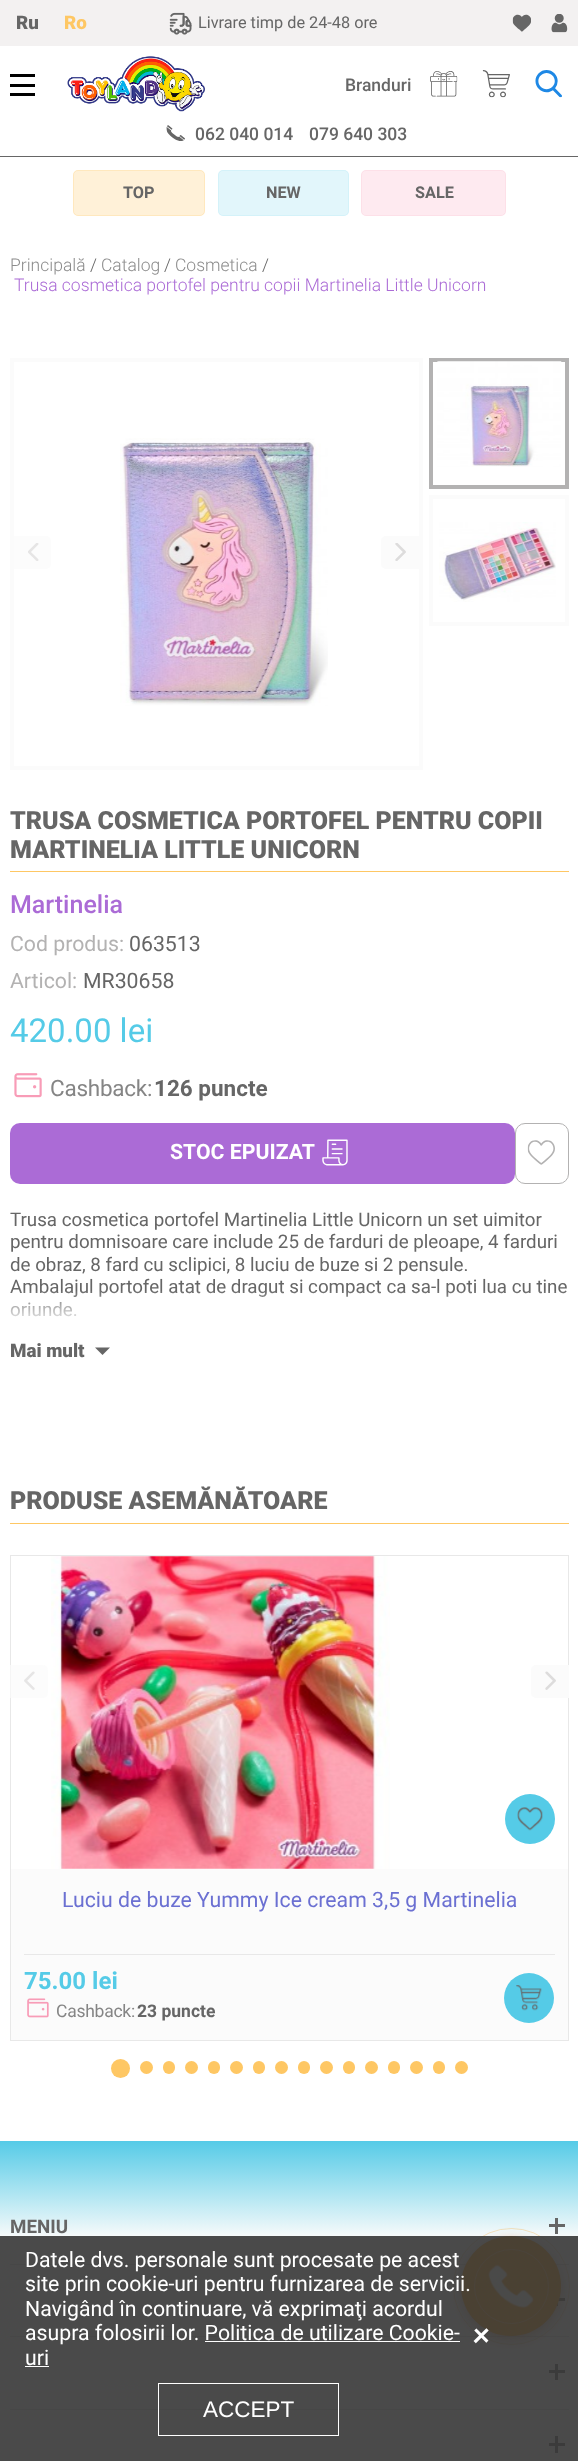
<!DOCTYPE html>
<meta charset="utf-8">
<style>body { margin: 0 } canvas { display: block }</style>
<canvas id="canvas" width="578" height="2461"></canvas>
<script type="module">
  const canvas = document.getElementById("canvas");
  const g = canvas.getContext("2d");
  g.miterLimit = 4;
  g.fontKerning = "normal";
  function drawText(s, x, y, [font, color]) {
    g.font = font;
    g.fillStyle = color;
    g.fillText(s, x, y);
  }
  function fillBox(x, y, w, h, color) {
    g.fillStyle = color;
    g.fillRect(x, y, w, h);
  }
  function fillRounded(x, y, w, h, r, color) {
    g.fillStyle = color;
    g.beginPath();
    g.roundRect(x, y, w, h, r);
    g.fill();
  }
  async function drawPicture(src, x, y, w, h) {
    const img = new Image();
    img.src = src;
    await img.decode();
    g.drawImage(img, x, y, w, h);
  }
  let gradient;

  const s1 = ["900 18.75px Roboto", "#666666"];
  const s2 = ["900 18.75px Roboto", "#FEC764"];
  const s3 = ["16.25px Roboto", "#666666"];
  const s4 = ["500 17.5px Roboto", "#666666"];
  const s5 = ["bold 16.25px Roboto", "#666666"];
  const s6 = ["300 17.5px Roboto", "#8C8C8C"];
  const s7 = ["300 17.5px Roboto", "#666666"];
  const s8 = ["300 17.5px Roboto", "#AB6BD6"];
  const s9 = ["900 25px Roboto", "#666666"];
  const s10 = ["500 25px Roboto", "#AB6BD6"];
  const s11 = ["21.25px Roboto", "#B3B2B2"];
  const s12 = ["21.25px Roboto", "#666666"];
  const s13 = ["33px Roboto", "#55CBE7"];
  const s14 = ["22.5px Roboto", "#858585"];
  const s15 = ["bold 22.5px Roboto", "#666666"];
  const s16 = ["bold 21.25px Roboto", "#FFFFFF"];
  const s17 = ["18.75px Roboto", "#666666"];
  const s18 = ["21.25px Roboto", "#6B70D2"];
  const s19 = ["bold 24px Roboto", "#55CBE7"];
  const s20 = ["17.5px Roboto", "#858585"];
  const s21 = ["bold 17.5px Roboto", "#666666"];
  const s22 = ["bold 18.75px Roboto", "#666666"];
  const s23 = ["21.25px Roboto", "#FFFFFF"];
  const s24 = ["22.5px Liberation Sans", "#FFFFFF"];

  fillBox(0, 0, 578, 2461, "#FFFFFF");
  fillBox(0, 156, 578, 1, "#666666");
  fillBox(0, 0, 578, 46, "#F3F1F1");
  drawText("Ru", 16, 29, s1);
  drawText("Ro", 64, 29, s2);
  await drawPicture("pic1.png", 169, 12, 23, 23);
  drawText("Livrare timp de 24-48 ore", 198, 28, s3);
  await drawPicture("pic2.png", 512, 14, 19, 18);
  await drawPicture("pic3.png", 551, 14, 17, 19);
  fillBox(10, 74, 25, 3, "#000000");
  fillBox(10, 84, 25, 3, "#000000");
  fillBox(10, 93, 25, 3, "#000000");
  await drawPicture("pic4.png", 67, 56, 138, 56);
  drawText("Branduri", 345, 91, s4);
  await drawPicture("pic5.png", 430, 71, 28, 26);
  await drawPicture("pic6.png", 482, 70, 28, 28);
  await drawPicture("pic7.png", 535, 70, 27, 28);
  await drawPicture("pic8.png", 166, 125, 19, 16);
  drawText("062 040 014", 195, 140, s4);
  drawText("079 640 303", 309, 140, s4);
  fillRounded(73, 170, 132, 46, 5, "#FFF1D8");
  g.beginPath();
  g.roundRect(73.5, 170.5, 131, 45, 4.5);
  g.strokeStyle = "rgba(254, 199, 100, 0.22)";
  g.stroke();
  drawText("TOP", 123, 198, s5);
  fillRounded(218, 170, 131, 46, 5, "#E2F6FB");
  g.beginPath();
  g.roundRect(218.5, 170.5, 130, 45, 4.5);
  g.strokeStyle = "rgba(85, 203, 231, 0.1)";
  g.stroke();
  drawText("NEW", 266, 198, s5);
  fillRounded(361, 170, 145, 46, 5, "#FEEAF0");
  g.beginPath();
  g.roundRect(361.5, 170.5, 144, 45, 4.5);
  g.strokeStyle = "rgba(248, 156, 183, 0.12)";
  g.stroke();
  drawText("SALE", 415, 198, s5);
  drawText("Principală", 10, 271, s6);
  drawText("/", 90, 271, s7);
  drawText("Catalog", 101, 271, s6);
  drawText("/", 164, 271, s7);
  drawText("Cosmetica", 175, 271, s6);
  drawText("/", 262, 271, s7);
  drawText("Trusa cosmetica portofel pentru copii Martinelia Little Unicorn", 14, 291, s8);
  g.strokeStyle = "#FBFBFB";
  g.lineWidth = 4;
  g.strokeRect(12, 360, 409, 408);
  g.fillStyle = "#FCFCFC";
  g.beginPath();
  g.roundRect(14, 536, 37, 33, [0, 5, 5, 0]);
  g.fill();
  await drawPicture("pic9.png", 28, 543, 11, 18);
  await drawPicture("pic10.png", 120, 438, 208, 268);
  g.fillStyle = "#FBFBFB";
  g.beginPath();
  g.roundRect(381, 536, 38, 33, [5, 0, 0, 5]);
  g.fill();
  await drawPicture("pic11.png", 395, 543, 11, 18);
  g.strokeStyle = "#B3B2B2";
  g.strokeRect(431, 360, 136, 127);
  await drawPicture("pic12.png", 437, 361, 125, 106);
  g.strokeStyle = "#FBFBFB";
  g.strokeRect(431, 497, 136, 127);
  await drawPicture("pic13.png", 439, 522, 117, 80);
  fillBox(10, 871, 559, 1, "#FEC764");
  drawText("TRUSA COSMETICA PORTOFEL PENTRU COPII", 10, 829, s9);
  drawText("MARTINELIA LITTLE UNICORN", 10, 858, s9);
  drawText("Martinelia", 10, 913, s10);
  drawText("Cod produs:", 10, 951, s11);
  drawText("063513", 129, 951, s12);
  drawText("Articol:", 10, 988, s11);
  drawText("MR30658", 83, 988, s12);
  drawText("420.00 lei", 10, 1042, s13);
  await drawPicture("pic14.png", 14, 1073, 28, 25);
  g.letterSpacing = "-0.25px";
  drawText("Cashback:", 50, 1096, s14);
  g.letterSpacing = "0px";
  drawText("126 puncte", 154, 1096, s15);
  fillRounded(10, 1123, 505, 61, 10, "#AB6BD6");
  drawText("STOC EPUIZAT", 170, 1159, s16);
  await drawPicture("pic15.png", 322, 1139, 26, 27);
  g.beginPath();
  g.roundRect(515.5, 1123.5, 53, 60, 9.5);
  g.strokeStyle = "#B3B2B2";
  g.lineWidth = 1;
  g.stroke();
  await drawPicture("pic16.png", 527, 1140, 28, 25);
  drawText("Trusa cosmetica portofel Martinelia Little Unicorn un set uimitor", 10, 1226, s17);
  drawText("pentru domnisoare care include 25 de farduri de pleoape, 4 farduri", 10, 1248, s17);
  drawText("de obraz, 8 fard cu sclipici, 8 luciu de buze si 2 pensule.", 10, 1271, s17);
  drawText("Ambalajul portofel atat de dragut si compact ca sa-l poti lua cu tine", 10, 1293, s17);
  drawText("oriunde.", 10, 1316, s17);
  gradient = g.createLinearGradient(289, 1321, 289, 1290);
  gradient.addColorStop(0, "rgba(255, 255, 255, 0.85)");
  gradient.addColorStop(0.5, "rgba(255, 255, 255, 0.46)");
  gradient.addColorStop(1, "rgba(255, 255, 255, 0)");
  g.fillStyle = gradient;
  g.fillRect(10, 1291, 556, 26);
  drawText("Mai mult", 10, 1357, s1);
  g.beginPath();
  g.moveTo(95, 1347.5);
  g.lineTo(110, 1347.5);
  g.lineTo(102.5, 1355);
  g.closePath();
  g.fill();
  fillBox(10, 1523, 559, 1, "#FEC764");
  drawText("PRODUSE ASEMĂNĂTOARE", 10, 1509, s9);
  g.strokeStyle = "#E8E8E8";
  g.strokeRect(10.5, 1555.5, 558, 485);
  g.fillStyle = "rgba(251, 251, 251, 0.7)";
  g.beginPath();
  g.roundRect(10, 1665, 38, 33, [0, 5, 5, 0]);
  g.fill();
  await drawPicture("pic17.png", 24, 1671, 11, 19);
  g.fillStyle = "#FBFBFB";
  g.beginPath();
  g.roundRect(531, 1665, 38, 33, [5, 0, 0, 5]);
  g.fill();
  await drawPicture("pic18.png", 545, 1671, 11, 19);
  await drawPicture("pic19.png", 51, 1556, 339, 313);
  g.fillStyle = "#55CBE7";
  g.beginPath();
  g.arc(530, 1819, 25, 0, Math.PI * 2);
  g.fill();
  await drawPicture("pic20.png", 517, 1807, 26, 24);
  fillBox(11, 1869, 557, 171, "#FBFBFB");
  drawText("Luciu de buze Yummy Ice cream 3,5 g Martinelia", 62, 1907, s18);
  fillBox(24, 1954, 531, 1, "#E8E8E8");
  drawText("75.00 lei", 24, 1989, s19);
  await drawPicture("pic21.png", 27, 1998, 22, 20);
  g.letterSpacing = "-0.25px";
  drawText("Cashback:", 56, 2017, s20);
  g.letterSpacing = "0px";
  drawText("23 puncte", 137, 2017, s21);
  g.fillStyle = "#55CBE7";
  g.beginPath();
  g.arc(529, 1998, 25, 0, Math.PI * 2);
  g.fill();
  await drawPicture("pic22.png", 516, 1985, 26, 26);
  g.fillStyle = "#FEC764";
  g.beginPath();
  g.arc(120.5, 2068.5, 9.5, 0, Math.PI * 2);
  g.fill();
  g.beginPath();
  g.arc(146.5, 2067.5, 6.5, 0, Math.PI * 2);
  g.fill();
  fillRounded(163, 2061, 12, 13, 6, "#FEC764");
  g.beginPath();
  g.arc(191.5, 2067.5, 6.5, 0, Math.PI * 2);
  g.fill();
  fillRounded(208, 2061, 12, 13, 6, "#FEC764");
  g.beginPath();
  g.arc(236.5, 2067.5, 6.5, 0, Math.PI * 2);
  g.fill();
  fillRounded(253, 2061, 12, 13, 6, "#FEC764");
  g.beginPath();
  g.arc(281.5, 2067.5, 6.5, 0, Math.PI * 2);
  g.fill();
  fillRounded(298, 2061, 12, 13, 6, "#FEC764");
  g.beginPath();
  g.arc(326.5, 2067.5, 6.5, 0, Math.PI * 2);
  g.fill();
  fillRounded(343, 2061, 12, 13, 6, "#FEC764");
  g.beginPath();
  g.arc(371.5, 2067.5, 6.5, 0, Math.PI * 2);
  g.fill();
  fillRounded(388, 2061, 12, 13, 6, "#FEC764");
  g.beginPath();
  g.arc(416.5, 2067.5, 6.5, 0, Math.PI * 2);
  g.fill();
  fillRounded(433, 2061, 12, 13, 6, "#FEC764");
  g.beginPath();
  g.arc(461.5, 2067.5, 6.5, 0, Math.PI * 2);
  g.fill();
  gradient = g.createLinearGradient(289, 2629, 289, 2141);
  gradient.addColorStop(0.8, "#FBFBFB");
  gradient.addColorStop(1, "#55CBE7");
  g.fillStyle = gradient;
  g.fillRect(0, 2141, 578, 320);
  fillBox(10, 2264, 559, 1, "#DDDCDC");
  drawText("MENIU", 10, 2233, s22);
  fillBox(549, 2224, 16, 3, "#666666");
  fillBox(555, 2218, 3, 16, "#666666");
  fillBox(10, 2336, 559, 1, "#DDDCDC");
  fillBox(558, 2298, 7, 3, "#666666");
  fillBox(556, 2303, 2, 3, "#666666");
  fillBox(10, 2409, 559, 1, "#DDDCDC");
  fillBox(549, 2370, 16, 3, "#666666");
  fillBox(555, 2364, 3, 16, "#666666");
  fillBox(549, 2443, 16, 3, "#666666");
  fillBox(555, 2436, 3, 17, "#666666");
  g.fillStyle = "rgba(183, 88, 13, 0.41)";
  g.filter = "blur(6px)";
  g.beginPath();
  g.roundRect(461, 2240, 100, 100, 50);
  g.fill();
  g.filter = "none";
  g.fillStyle = "#F8A01B";
  g.beginPath();
  g.arc(511, 2286, 50, 0, Math.PI * 2);
  g.fill();
  g.beginPath();
  g.arc(511.5, 2286.5, 58, 0, Math.PI * 2);
  g.strokeStyle = "rgba(248, 160, 27, 0.27)";
  g.stroke();
  g.beginPath();
  g.arc(511.5, 2286.5, 37, 0, Math.PI * 2);
  g.strokeStyle = "#FABD62";
  g.stroke();
  await drawPicture("pic23.png", 488, 2264, 46, 44);
  fillBox(0, 2236, 578, 225, "rgba(54, 54, 54, 0.9)");
  drawText("Datele dvs. personale sunt procesate pe acest", 25, 2267, s23);
  drawText("site prin cookie-uri pentru furnizarea de servicii.", 25, 2291, s23);
  drawText("Navigând în continuare, vă exprimaţi acordul", 25, 2316, s23);
  drawText("asupra folosirii lor. Politica de utilizare Cookie-", 25, 2340, s23);
  drawText("uri", 25, 2365, s23);
  fillBox(205, 2341, 255, 1, "#FFFFFF");
  fillBox(25, 2366, 24, 1, "#FFFFFF");
  g.strokeStyle = "#FFFFFF";
  g.strokeRect(158.5, 2383.5, 180, 52);
  drawText("ACCEPT", 203, 2417, s24);
  g.font = "35px Roboto";
  g.save();
  g.translate(466, 2337);
  g.rotate(45 * Math.PI / 180);
  g.fillText("+", 0, 0);
  g.restore();
</script>
